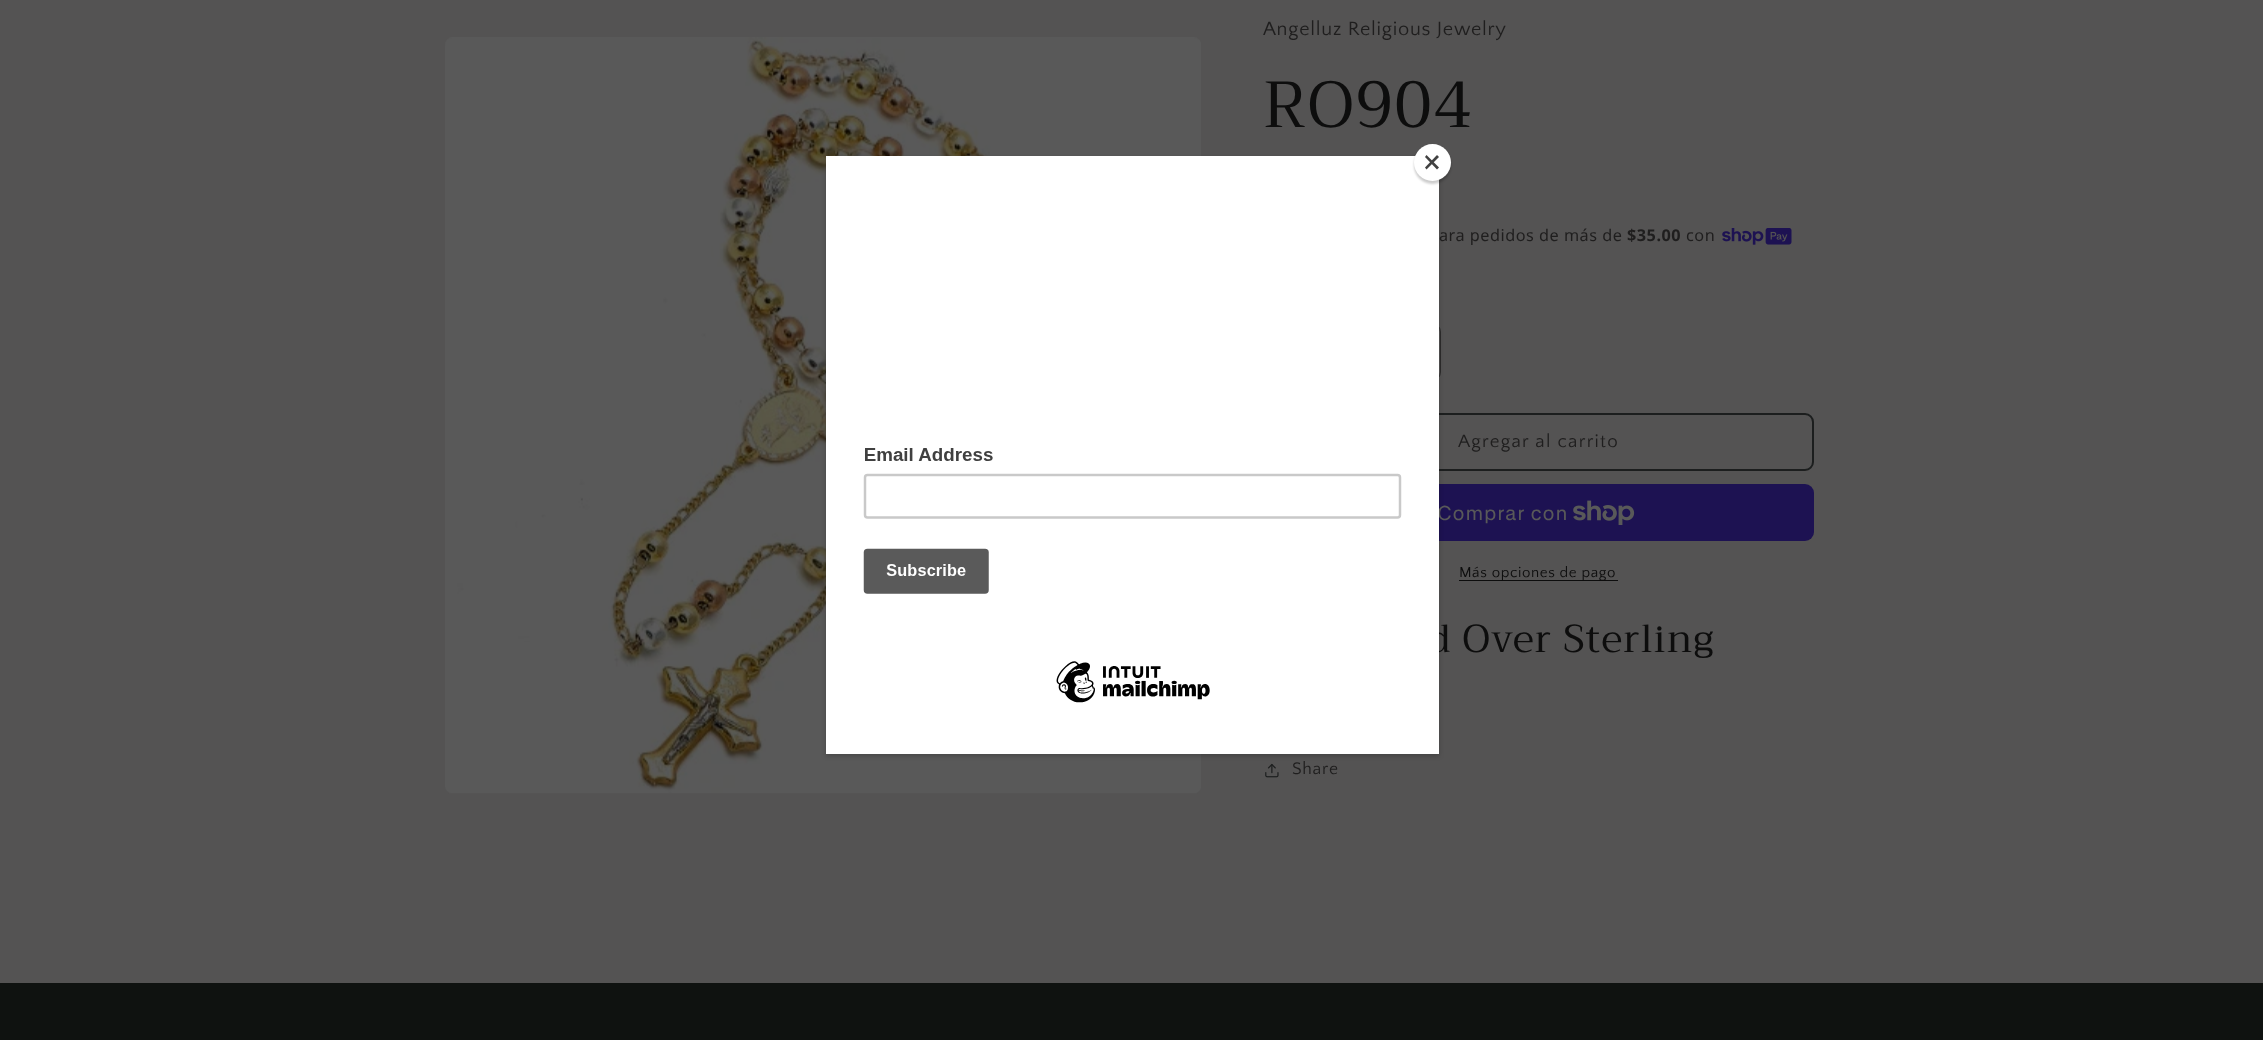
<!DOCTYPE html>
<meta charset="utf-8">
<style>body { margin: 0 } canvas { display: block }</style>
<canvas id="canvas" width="2263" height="1040"></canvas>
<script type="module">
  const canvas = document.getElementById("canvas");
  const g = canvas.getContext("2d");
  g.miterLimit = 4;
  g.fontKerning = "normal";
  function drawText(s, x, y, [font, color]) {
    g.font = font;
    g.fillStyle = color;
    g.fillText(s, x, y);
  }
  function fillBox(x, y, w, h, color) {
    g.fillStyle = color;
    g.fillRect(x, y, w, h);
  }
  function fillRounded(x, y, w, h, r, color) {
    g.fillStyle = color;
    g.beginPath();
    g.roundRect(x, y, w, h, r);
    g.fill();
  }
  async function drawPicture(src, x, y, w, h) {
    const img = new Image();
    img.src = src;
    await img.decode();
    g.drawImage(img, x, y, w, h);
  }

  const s1 = ["20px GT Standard", "#595959"];
  const s2 = ["39px Trirong", "#0D0D0D"];
  const s3 = ["20px Quattrocento Sans", "#1F1E1E"];
  const s4 = ["65px Trirong", "#0D0D0D"];
  const s5 = ["16.25px Noto Sans", "#1F1E1E"];
  const s6 = ["bold 16.25px Noto Sans", "#1F1E1E"];
  const s7 = ["18.75px Quattrocento Sans", "#1F1E1E"];
  const s8 = ["15px Quattrocento Sans", "#0D0D0D"];
  const s9 = ["17.5px Quattrocento Sans", "#1F1E1E"];

  fillBox(0, 0, 2263, 1040, "#545353");
  await drawPicture("pic2.png", 445, 37, 756, 757);
  g.beginPath();
  g.roundRect(1264.5, 323.5, 176, 57, 8.5);
  g.strokeStyle = "#2D2C2C";
  g.stroke();
  g.beginPath();
  g.roundRect(1265, 414, 548, 56, 8);
  g.strokeStyle = "#1C1E1E";
  g.lineWidth = 2;
  g.stroke();
  fillRounded(1264, 484, 550, 57, 9, "#1D1252");
  await drawPicture("pic5.png", 1265, 763, 14, 15);
  g.fillStyle = "rgba(0, 0, 0, 0.2)";
  g.filter = "blur(2.5px)";
  g.beginPath();
  g.rect(826, 159, 613, 597);
  g.fill();
  g.filter = "none";
  g.letterSpacing = "0.75px";
  drawText("Comprar con", 1437, 520, s1);
  g.letterSpacing = "1px";
  drawText("d Over Sterling", 1427, 652, s2);
  await drawPicture("pic1.png", 826, 156, 613, 598);
  g.fillStyle = "rgba(0, 0, 0, 0.2)";
  g.filter = "blur(1px)";
  g.beginPath();
  g.roundRect(1414, 146, 37, 38, 18.5);
  g.fill();
  g.filter = "none";
  g.fillStyle = "#FFFFFF";
  g.beginPath();
  g.arc(1432.5, 162.5, 18.5, 0, Math.PI * 2);
  g.fill();
  g.fillStyle = "#414141";
  g.beginPath();
  g.moveTo(1437, 155);
  g.lineTo(1439, 157);
  g.lineTo(1426.5, 169.5);
  g.lineTo(1425, 167.5);
  g.closePath();
  g.fill();
  g.beginPath();
  g.moveTo(1425, 157);
  g.lineTo(1426.5, 155);
  g.lineTo(1439, 167.5);
  g.lineTo(1437, 169.5);
  g.closePath();
  g.fill();
  g.letterSpacing = "0.75px";
  drawText("Angelluz Religious Jewelry", 1263, 35, s3);
  g.letterSpacing = "1px";
  drawText("RO904", 1263, 127, s4);
  g.letterSpacing = "0.5px";
  drawText("ara pedidos de más de", 1439, 241, s5);
  drawText("$35.00", 1627, 241, s6);
  drawText("con", 1686, 241, s5);
  await drawPicture("pic3.png", 1722, 228, 70, 17);
  g.letterSpacing = "1.25px";
  drawText("Agregar al carrito", 1458, 447, s7);
  await drawPicture("pic4.png", 1573, 500, 62, 25);
  fillBox(1459, 580, 159, 1, "#0D0D0D");
  g.letterSpacing = "0.6px";
  drawText("Más opciones de pago", 1459, 577, s8);
  g.letterSpacing = "0.75px";
  drawText("Share", 1292, 774, s9);
  fillBox(0, 983, 2263, 57, "#0F1210");
</script>
